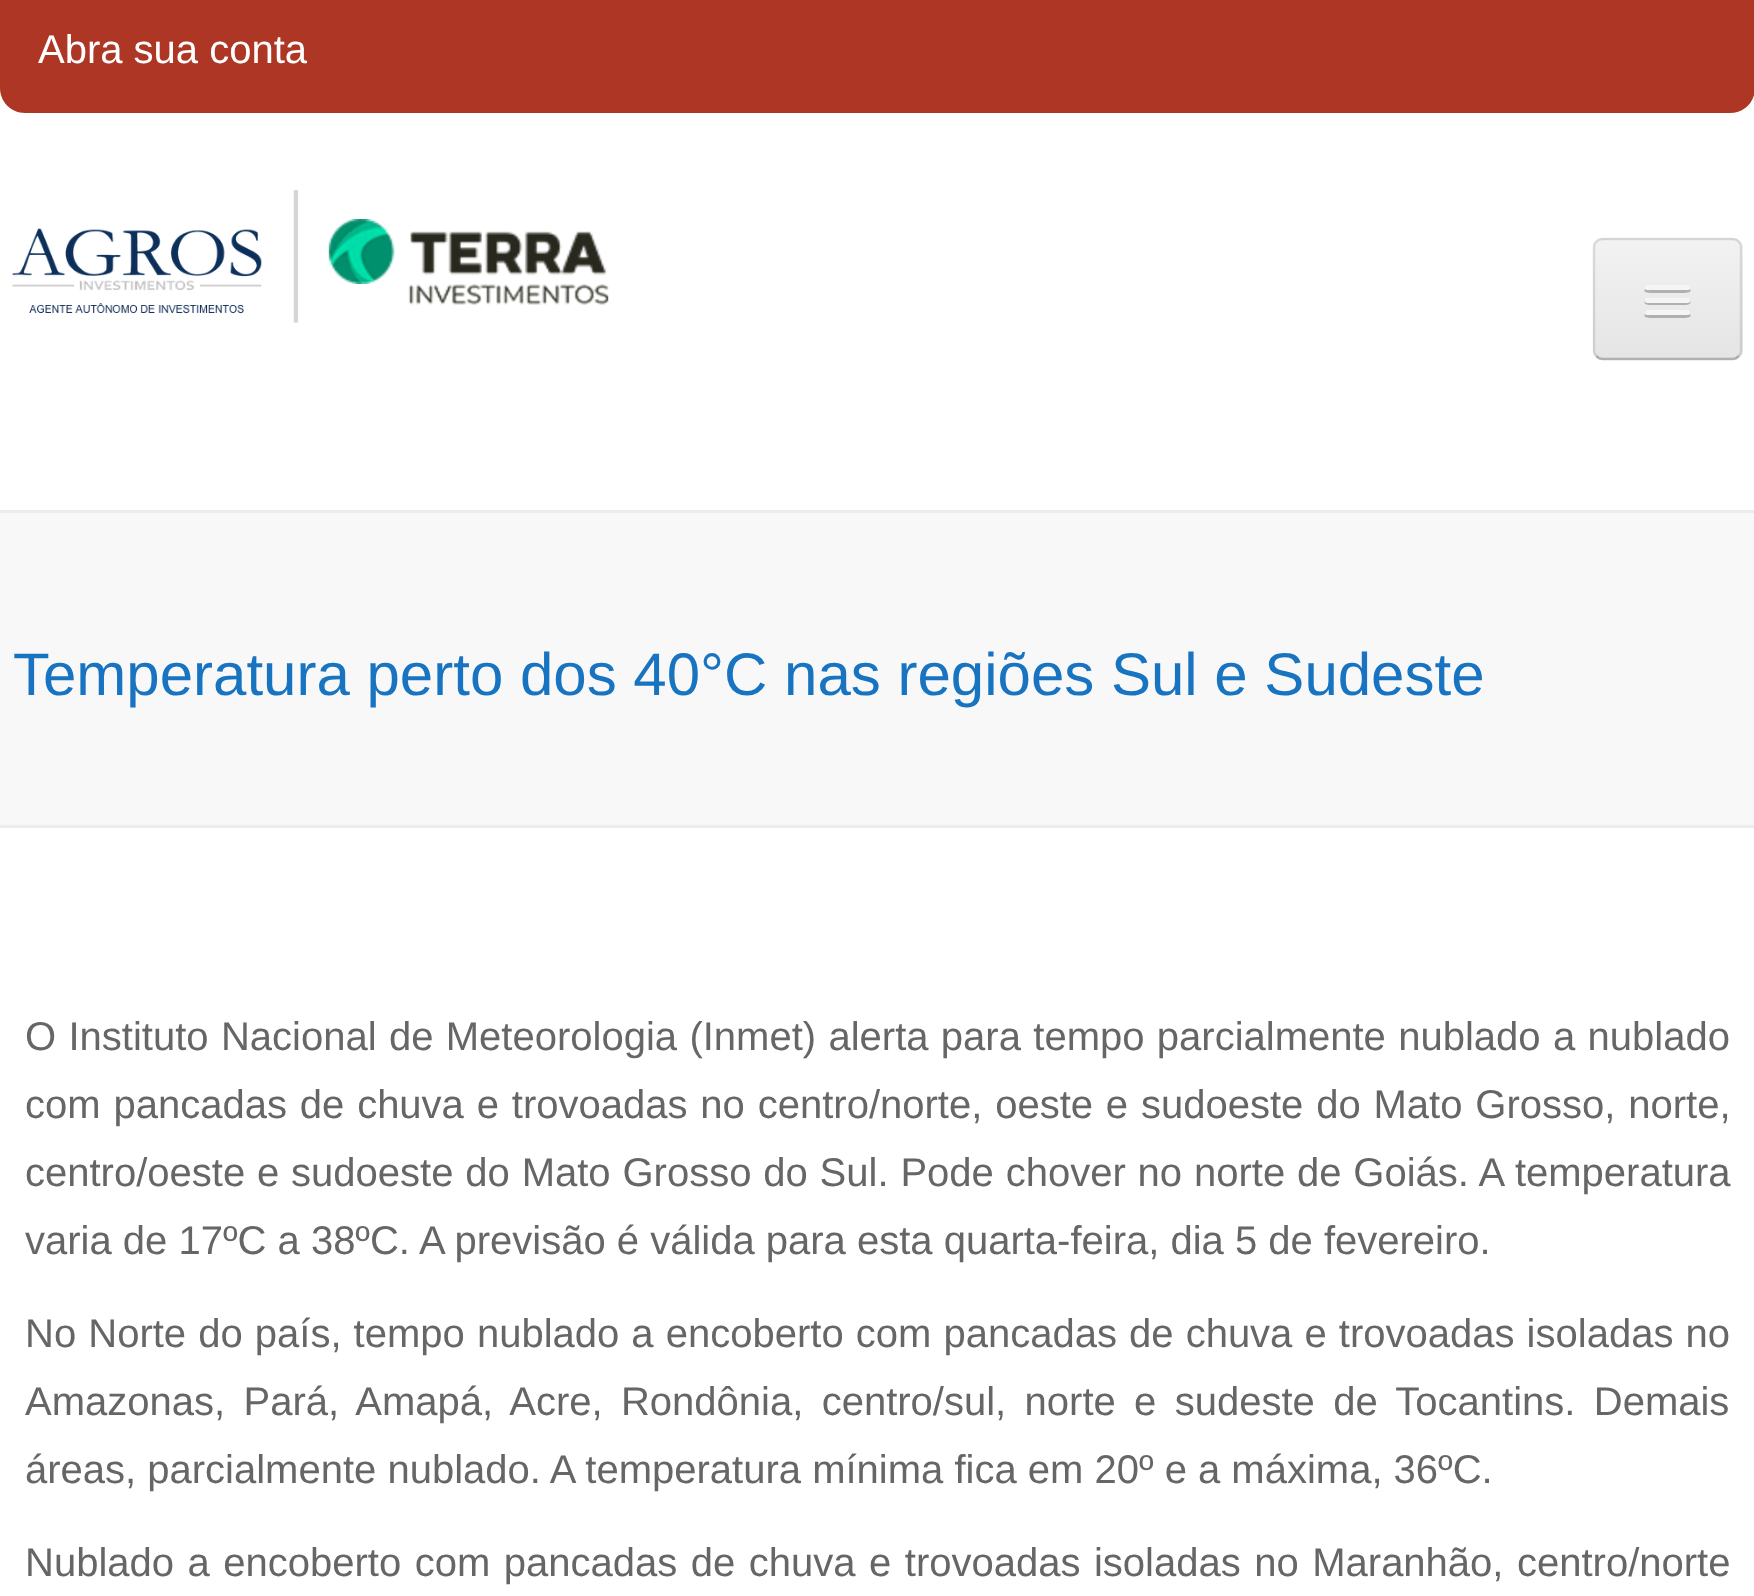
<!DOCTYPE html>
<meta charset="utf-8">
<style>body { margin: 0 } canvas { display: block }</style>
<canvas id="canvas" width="1754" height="1596"></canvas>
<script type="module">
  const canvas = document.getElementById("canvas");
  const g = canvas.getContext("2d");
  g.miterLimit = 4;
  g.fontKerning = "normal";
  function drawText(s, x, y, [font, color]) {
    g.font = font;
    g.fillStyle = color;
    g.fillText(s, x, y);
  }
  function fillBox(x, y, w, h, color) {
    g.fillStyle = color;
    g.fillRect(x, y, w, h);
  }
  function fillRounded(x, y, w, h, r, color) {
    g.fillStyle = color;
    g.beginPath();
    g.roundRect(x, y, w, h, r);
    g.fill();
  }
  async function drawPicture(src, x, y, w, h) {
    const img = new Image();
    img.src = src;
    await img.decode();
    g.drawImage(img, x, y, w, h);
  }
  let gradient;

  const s1 = ["40px Liberation Sans", "#FFFFFF"];
  const s2 = ["60px Liberation Sans", "#1874C1"];
  const s3 = ["40px Liberation Sans", "#666666"];

  fillBox(0, 0, 1754, 1596, "#FFFFFF");
  g.fillStyle = "#AE3625";
  g.beginPath();
  g.moveTo(0, 0);
  g.lineTo(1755, 0);
  g.lineTo(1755, 88);
  g.bezierCurveTo(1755, 102, 1744, 113, 1730, 113);
  g.lineTo(25, 113);
  g.bezierCurveTo(11, 113, 0, 102, 0, 88);
  g.closePath();
  g.fill();
  drawText("Abra sua conta", 38, 63, s1);
  await drawPicture("pic1.png", 12, 190, 597, 133);
  fillRounded(1593, 238, 150, 122, 10, "#EDEDED");
  g.save();
  g.beginPath();
  g.roundRect(1593, 238, 150, 122, 10);
  g.clip();
  gradient = g.createLinearGradient(1668, 240, 1668, 358);
  gradient.addColorStop(0, "#F2F2F2");
  gradient.addColorStop(1, "#E5E5E5");
  g.fillStyle = gradient;
  g.fillRect(1593, 240, 150, 118);
  g.restore();
  g.beginPath();
  g.moveTo(1738.5, 356);
  g.bezierCurveTo(1737, 358, 1735, 359, 1732.5, 359);
  g.lineTo(1602.5, 359);
  g.bezierCurveTo(1600, 359, 1598, 358, 1596.5, 356);
  g.strokeStyle = "rgba(0, 0, 0, 0.25)";
  g.lineWidth = 2.5;
  g.stroke();
  g.beginPath();
  g.moveTo(1596.5, 356);
  g.bezierCurveTo(1594.5, 354.5, 1594, 352.5, 1594, 350);
  g.lineTo(1594, 247.5);
  g.bezierCurveTo(1594, 245, 1594.5, 243, 1596.5, 241.5);
  g.bezierCurveTo(1598, 239.5, 1600, 239, 1602.5, 239);
  g.lineTo(1732.5, 239);
  g.bezierCurveTo(1735, 239, 1737, 239.5, 1738.5, 241.5);
  g.bezierCurveTo(1740.5, 243, 1741, 245, 1741, 247.5);
  g.lineTo(1741, 350);
  g.bezierCurveTo(1741, 352.5, 1740.5, 354.5, 1738.5, 356);
  g.strokeStyle = "rgba(0, 0, 0, 0.1)";
  g.stroke();
  g.fillStyle = "#B1B1B1";
  g.beginPath();
  g.moveTo(1645, 289);
  g.bezierCurveTo(1642, 293, 1650, 293, 1654, 293);
  g.lineTo(1681, 293);
  g.bezierCurveTo(1685, 293, 1693, 293, 1690, 289);
  g.lineTo(1688, 290);
  g.lineTo(1647, 290);
  g.closePath();
  g.fill();
  fillRounded(1645, 285, 45, 5, 2.5, "#F5F5F5");
  g.fillStyle = "#B0B0B0";
  g.beginPath();
  g.moveTo(1645, 301);
  g.bezierCurveTo(1642, 306, 1654, 305, 1654, 305);
  g.lineTo(1681, 305);
  g.bezierCurveTo(1681, 305, 1693, 306, 1690, 301);
  g.bezierCurveTo(1689, 302, 1688, 302, 1688, 302);
  g.lineTo(1648, 302);
  g.bezierCurveTo(1647, 302, 1646, 302, 1645, 301);
  g.closePath();
  g.fill();
  fillRounded(1645, 298, 45, 5, 2.5, "#F5F5F5");
  g.fillStyle = "#AFAFAF";
  g.beginPath();
  g.moveTo(1645, 314);
  g.bezierCurveTo(1642, 318, 1650, 318, 1654, 318);
  g.lineTo(1681, 318);
  g.bezierCurveTo(1685, 318, 1693, 318, 1690, 314);
  g.lineTo(1688, 315);
  g.lineTo(1647, 315);
  g.closePath();
  g.fill();
  fillRounded(1645, 310, 45, 5, 2.5, "#F5F5F5");
  fillBox(0, 513, 1754, 312, "#F8F8F8");
  fillBox(0, 510, 1754, 3, "#ECECEC");
  fillBox(0, 825, 1754, 3, "#ECECEC");
  drawText("Temperatura perto dos 40°C nas regiões Sul e Sudeste", 13, 695, s2);
  g.wordSpacing = "1.25px";
  drawText("O Instituto Nacional de Meteorologia (Inmet) alerta para tempo parcialmente nublado a nublado", 25, 1050, s3);
  g.wordSpacing = "1.75px";
  drawText("com pancadas de chuva e trovoadas no centro/norte, oeste e sudoeste do Mato Grosso, norte,", 25, 1118, s3);
  g.wordSpacing = "0.75px";
  drawText("centro/oeste e sudoeste do Mato Grosso do Sul. Pode chover no norte de Goiás. A temperatura", 25, 1186, s3);
  g.wordSpacing = "0px";
  drawText("varia de 17ºC a 38ºC. A previsão é válida para esta quarta-feira, dia 5 de fevereiro.", 25, 1254, s3);
  g.wordSpacing = "1px";
  drawText("No Norte do país, tempo nublado a encoberto com pancadas de chuva e trovoadas isoladas no", 25, 1347, s3);
  g.wordSpacing = "7.25px";
  drawText("Amazonas, Pará, Amapá, Acre, Rondônia, centro/sul, norte e sudeste de Tocantins. Demais", 25, 1415, s3);
  g.wordSpacing = "0px";
  drawText("áreas, parcialmente nublado. A temperatura mínima fica em 20º e a máxima, 36ºC.", 25, 1483, s3);
  g.wordSpacing = "2.4px";
  drawText("Nublado a encoberto com pancadas de chuva e trovoadas isoladas no Maranhão, centro/norte", 25, 1576, s3);
</script>
